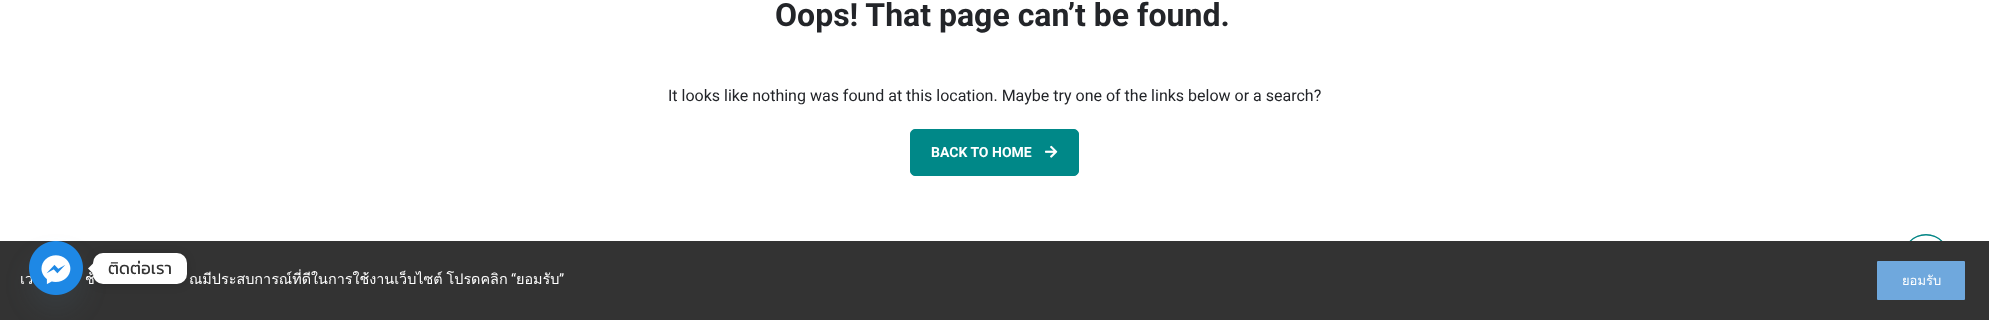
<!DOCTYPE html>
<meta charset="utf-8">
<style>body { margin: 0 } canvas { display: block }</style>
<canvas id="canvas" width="1989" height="320"></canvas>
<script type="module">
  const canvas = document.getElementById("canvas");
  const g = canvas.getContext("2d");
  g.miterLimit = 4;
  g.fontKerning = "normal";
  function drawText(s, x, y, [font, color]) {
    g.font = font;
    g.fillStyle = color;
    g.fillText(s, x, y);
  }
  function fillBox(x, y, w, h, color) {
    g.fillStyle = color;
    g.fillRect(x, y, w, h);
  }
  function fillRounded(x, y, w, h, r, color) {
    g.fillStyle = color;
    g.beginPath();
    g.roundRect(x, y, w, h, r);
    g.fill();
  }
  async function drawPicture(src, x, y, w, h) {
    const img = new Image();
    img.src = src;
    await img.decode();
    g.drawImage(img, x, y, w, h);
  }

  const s1 = ["bold 32px Roboto", "#232529"];
  const s2 = ["16px Roboto", "#232529"];
  const s3 = ["bold 14px Roboto", "#FFFFFF"];
  const s4 = ["14.4px Loma", "#FFFFFF"];
  const s5 = ["17px Kanit", "#333333"];
  const s6 = ["14.4px Roboto", "#FFFFFF"];
  const s7 = ["13px Loma", "#FFFFFF"];

  fillBox(0, 0, 1989, 320, "#FFFFFF");
  drawText("Oops! That page can’t be found.", 775, 26, s1);
  drawText("It looks like nothing was found at this location. Maybe try one of the links below or a search?", 668, 101, s2);
  g.fillStyle = "#008888";
  g.beginPath();
  g.roundRect(910.5, 129.5, 168, 46, 4.5);
  g.fill();
  g.strokeStyle = "#008888";
  g.stroke();
  drawText("BACK TO HOME", 931, 157, s3);
  await drawPicture("pic1.png", 1045, 145, 13, 13);
  g.beginPath();
  g.arc(1926, 257, 22.5, 0, Math.PI * 2);
  g.strokeStyle = "rgba(0, 0, 0, 0.2)";
  g.stroke();
  g.save();
  g.beginPath();
  g.roundRect(1903, 234, 46, 46, 23);
  g.clip();
  g.beginPath();
  g.moveTo(1926, 234.5);
  g.bezierCurveTo(1955.5, 234.5, 1955.5, 279.5, 1926, 279.5);
  g.bezierCurveTo(1896.5, 279.5, 1896.5, 234.5, 1926, 234.5);
  g.strokeStyle = "#008888";
  g.lineWidth = 1.8;
  g.stroke();
  g.restore();
  fillBox(0, 241, 1989, 79, "#333333");
  g.fillStyle = "rgba(73, 104, 126, 0.16)";
  g.filter = "blur(12px)";
  g.beginPath();
  g.roundRect(29, 257, 54, 54, 27);
  g.fill();
  g.filter = "none";
  g.wordSpacing = "-1px";
  drawText("เว", 20, 284, s4);
  drawText("ช้", 85, 284, s4);
  await drawPicture("pic2.png", 29, 241, 54, 54);
  g.fillStyle = "rgba(0, 0, 0, 0.15)";
  g.filter = "blur(4px)";
  g.beginPath();
  g.roundRect(93, 254, 94, 31, 10);
  g.fill();
  g.filter = "none";
  fillRounded(93, 253, 94, 31, 10, "#FFFFFF");
  g.beginPath();
  g.moveTo(93, 263.5);
  g.lineTo(93, 273.5);
  g.lineTo(88, 268.5);
  g.closePath();
  g.fill();
  g.wordSpacing = "0px";
  drawText("ติดต่อเรา", 108, 274, s5);
  g.wordSpacing = "-1px";
  drawText("ณมีประสบการณ์ที่ดีในการใช้งานเว็บไซต์ โปรดคลิก", 189, 284, s4);
  g.wordSpacing = "0px";
  drawText("“", 511, 284, s6);
  drawText("ยอมรับ", 516, 284, s4);
  drawText("”", 559, 284, s6);
  fillRounded(1877, 261, 88, 39, 1, "#6FA8DD");
  drawText("ยอมรับ", 1902, 285, s7);
</script>
